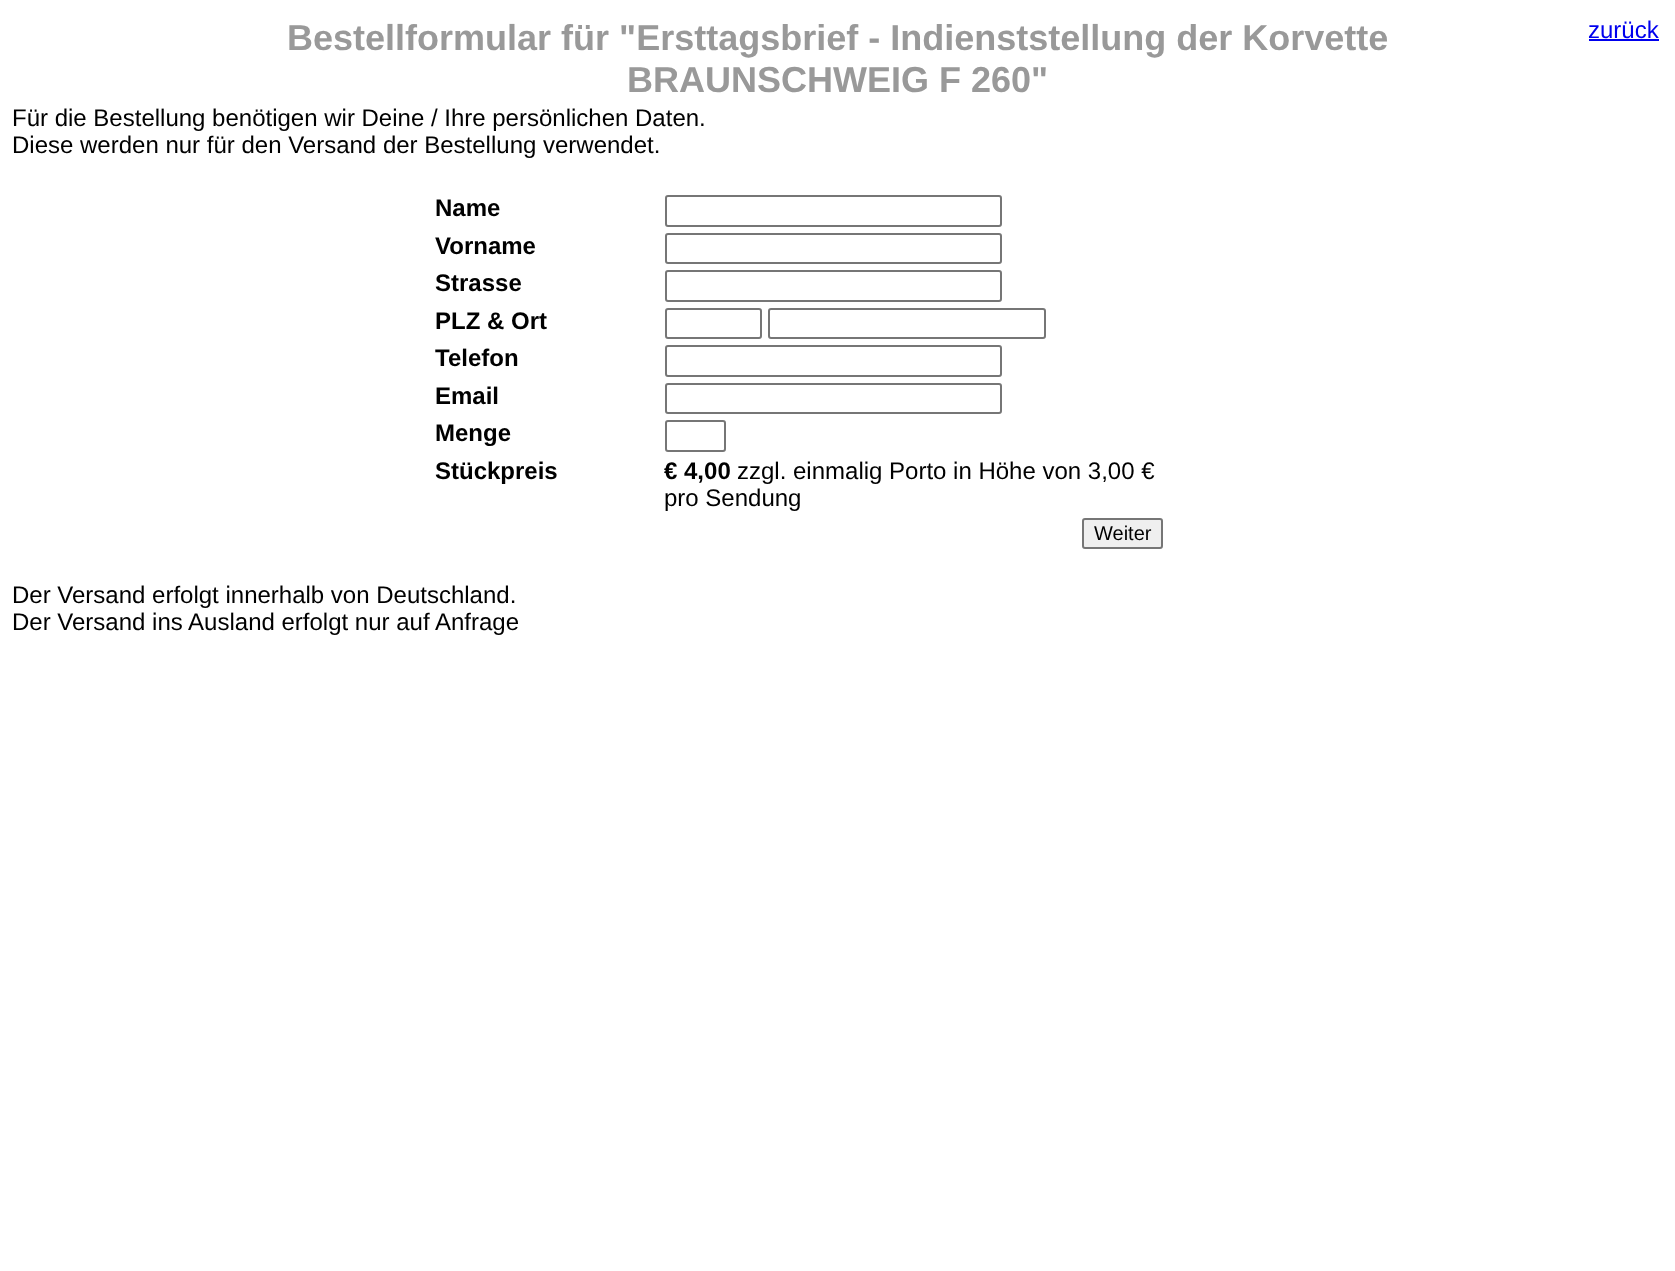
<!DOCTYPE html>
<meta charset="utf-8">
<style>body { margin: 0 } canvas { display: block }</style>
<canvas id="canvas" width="1675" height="1271"></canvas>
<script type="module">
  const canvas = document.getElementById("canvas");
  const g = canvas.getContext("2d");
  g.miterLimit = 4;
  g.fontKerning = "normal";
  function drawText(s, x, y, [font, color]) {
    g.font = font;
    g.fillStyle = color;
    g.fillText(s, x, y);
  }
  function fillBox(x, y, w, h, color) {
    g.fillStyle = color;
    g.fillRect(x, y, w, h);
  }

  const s1 = ["bold 36px Liberation Sans", "#999999"];
  const s2 = ["24px Liberation Sans", "#0000EE"];
  const s3 = ["24px Liberation Sans", "#000000"];
  const s4 = ["bold 24px Liberation Sans", "#000000"];
  const s5 = ["20px Liberation Sans", "#000000"];

  fillBox(0, 0, 1675, 1271, "#FFFFFF");
  drawText("Bestellformular für \"Ersttagsbrief - Indienststellung der Korvette", 287, 50, s1);
  drawText("BRAUNSCHWEIG F 260\"", 627, 92, s1);
  drawText("zurück", 1588, 38, s2);
  fillBox(1589, 39, 70, 2, "#0000EE");
  drawText("Für die Bestellung benötigen wir Deine / Ihre persönlichen Daten.", 12, 126, s3);
  drawText("Diese werden nur für den Versand der Bestellung verwendet.", 12, 153, s3);
  drawText("Name", 435, 216, s4);
  g.beginPath();
  g.roundRect(666, 196, 335, 30, 2);
  g.strokeStyle = "#767676";
  g.lineWidth = 2;
  g.stroke();
  drawText("Vorname", 435, 254, s4);
  g.beginPath();
  g.roundRect(666, 234, 335, 29, 2);
  g.stroke();
  drawText("Strasse", 435, 291, s4);
  g.beginPath();
  g.roundRect(666, 271, 335, 30, 2);
  g.stroke();
  drawText("PLZ & Ort", 435, 329, s4);
  g.beginPath();
  g.roundRect(666, 309, 95, 29, 2);
  g.stroke();
  g.beginPath();
  g.roundRect(769, 309, 276, 29, 2);
  g.stroke();
  drawText("Telefon", 435, 366, s4);
  g.beginPath();
  g.roundRect(666, 346, 335, 30, 2);
  g.stroke();
  drawText("Email", 435, 404, s4);
  g.beginPath();
  g.roundRect(666, 384, 335, 29, 2);
  g.stroke();
  drawText("Menge", 435, 441, s4);
  g.beginPath();
  g.roundRect(666, 421, 59, 30, 2);
  g.stroke();
  drawText("Stückpreis", 435, 479, s4);
  drawText("€ 4,00", 664, 479, s4);
  drawText("zzgl. einmalig Porto in Höhe von 3,00 €", 737, 479, s3);
  drawText("pro Sendung", 664, 506, s3);
  g.fillStyle = "#EFEFEF";
  g.beginPath();
  g.roundRect(1083, 519, 79, 29, 2);
  g.fill();
  g.stroke();
  drawText("Weiter", 1094, 540, s5);
  drawText("Der Versand erfolgt innerhalb von Deutschland.", 12, 603, s3);
  drawText("Der Versand ins Ausland erfolgt nur auf Anfrage", 12, 630, s3);
</script>
